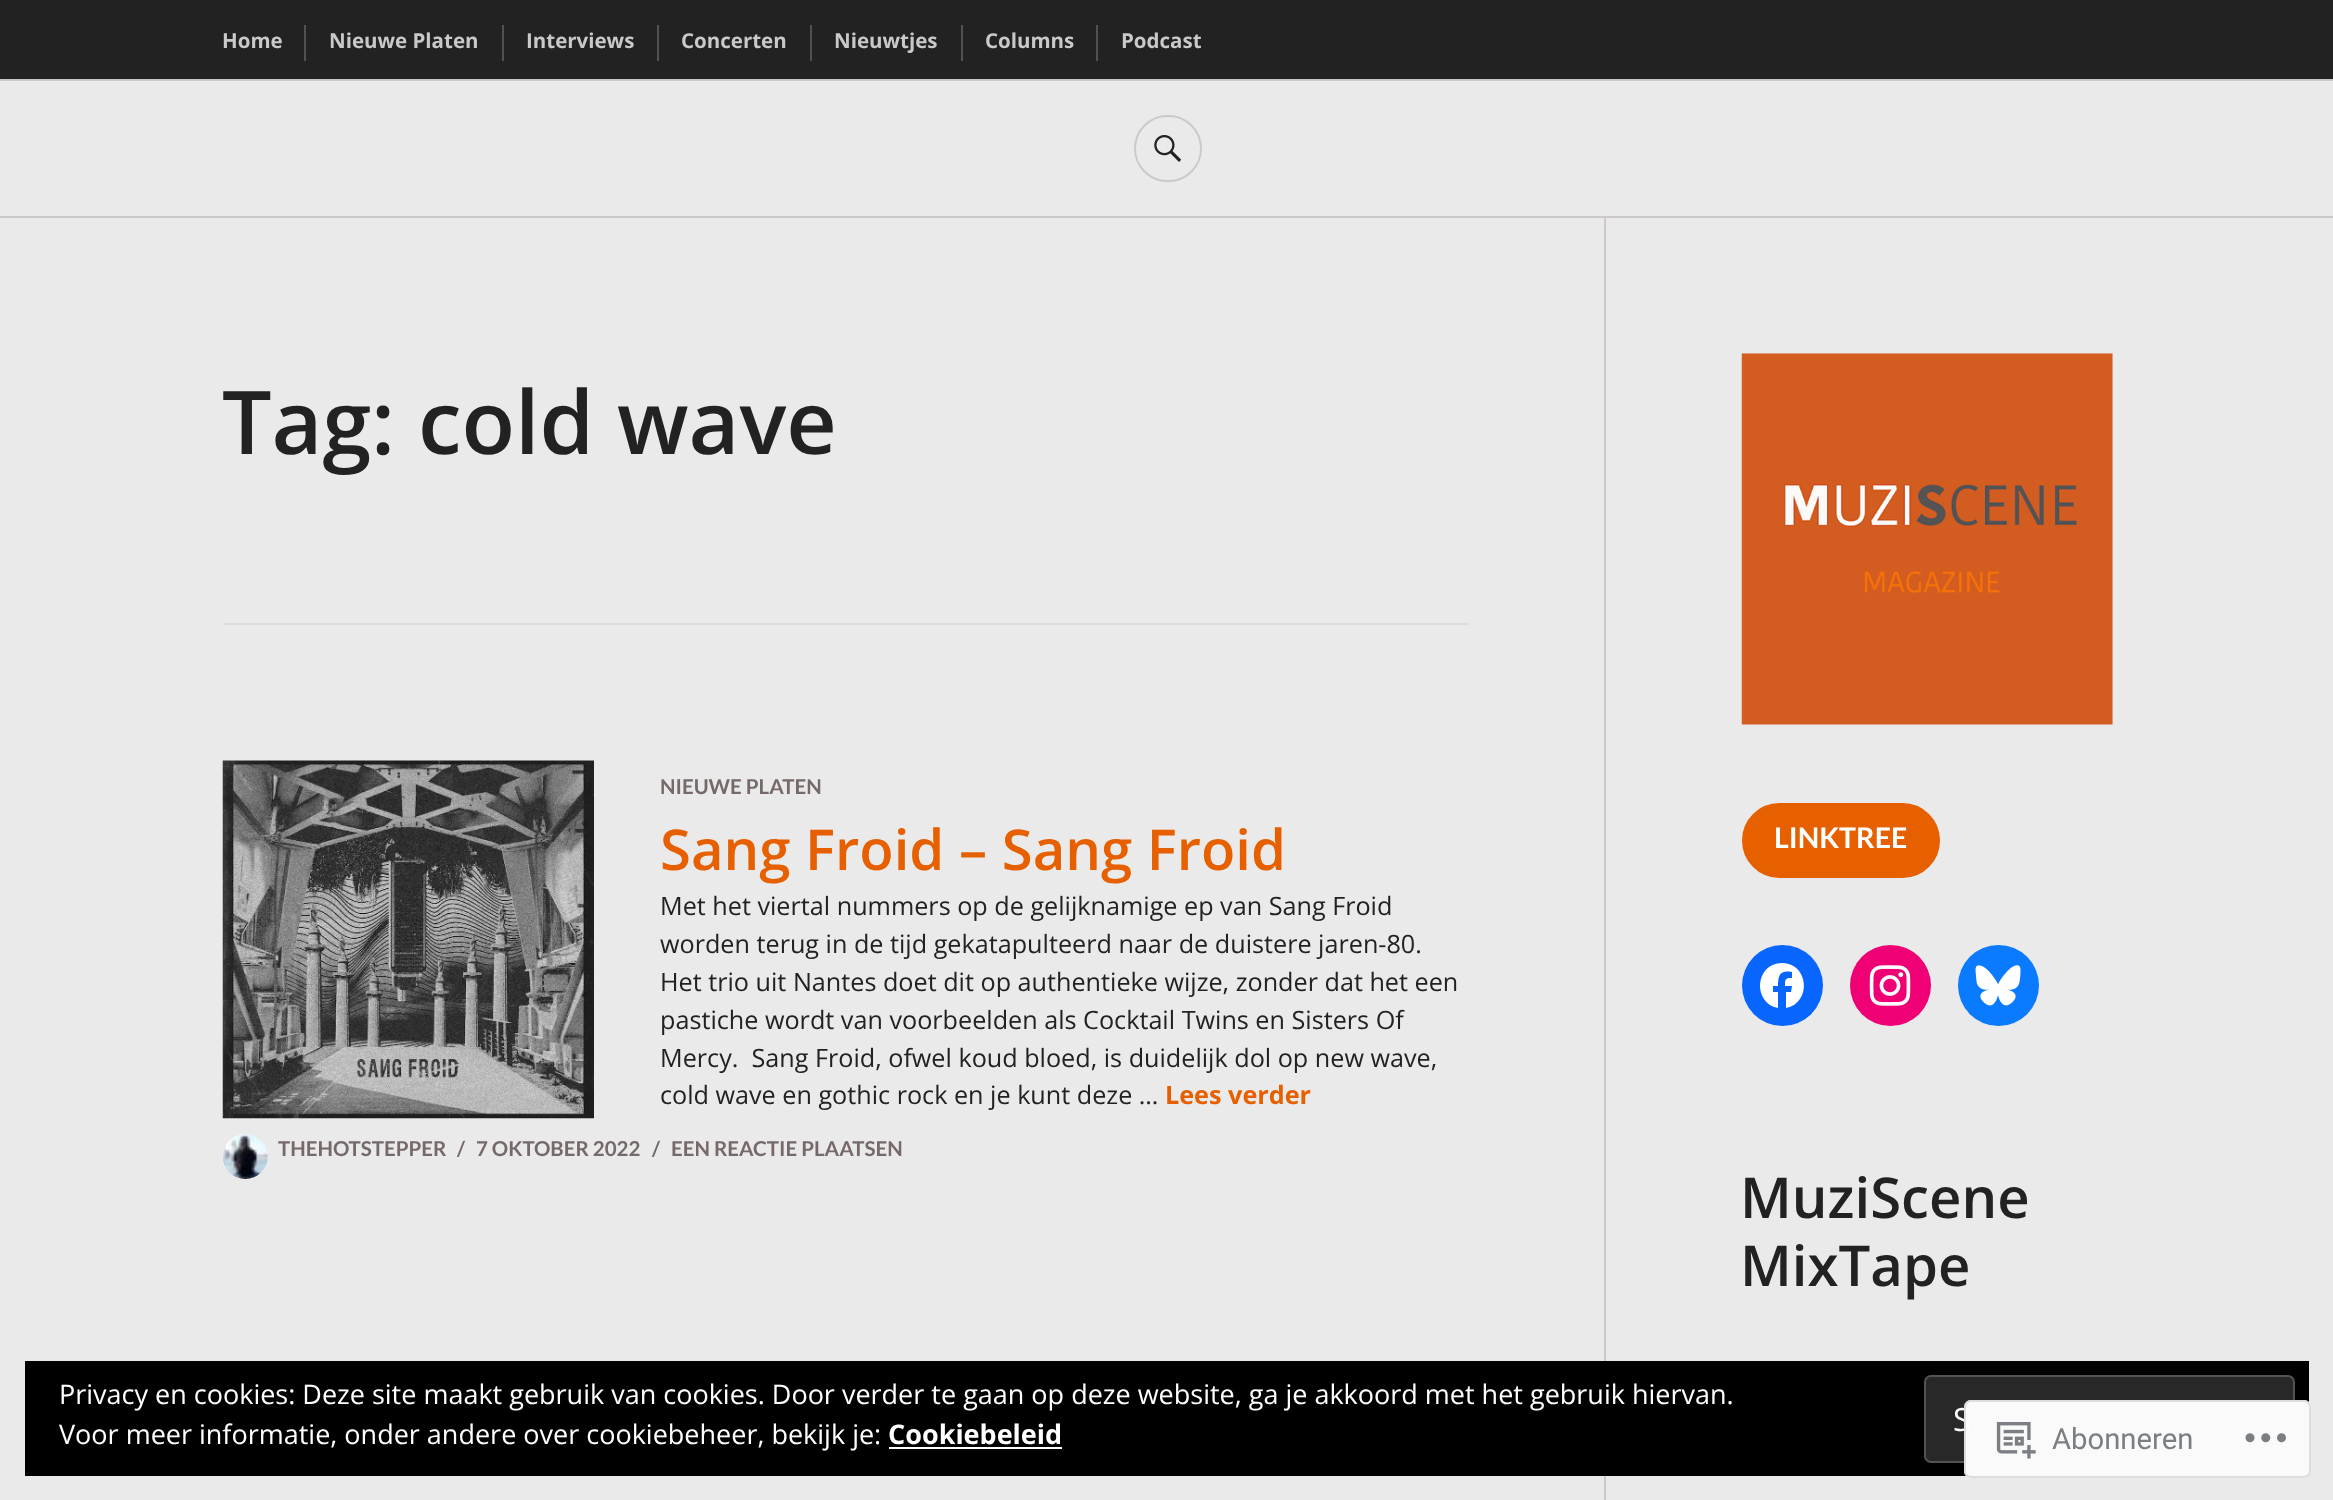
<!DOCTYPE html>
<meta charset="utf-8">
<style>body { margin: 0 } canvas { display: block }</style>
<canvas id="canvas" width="2333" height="1500"></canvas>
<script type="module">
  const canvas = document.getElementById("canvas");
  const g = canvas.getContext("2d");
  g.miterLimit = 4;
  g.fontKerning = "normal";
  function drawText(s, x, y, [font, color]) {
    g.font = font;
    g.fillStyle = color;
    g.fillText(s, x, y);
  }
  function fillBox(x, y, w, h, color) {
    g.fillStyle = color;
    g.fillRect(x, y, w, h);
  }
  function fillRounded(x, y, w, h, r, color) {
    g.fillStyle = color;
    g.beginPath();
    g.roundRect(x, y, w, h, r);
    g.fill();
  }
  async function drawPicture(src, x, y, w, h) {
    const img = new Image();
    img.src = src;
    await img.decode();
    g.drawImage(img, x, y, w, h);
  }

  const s1 = ["bold 20.5px Open Sans", "#C9C9C9"];
  const s2 = ["600 87.75px Open Sans", "#222222"];
  const s3 = ["bold 20.5px Lato", "#766969"];
  const s4 = ["600 56.25px Open Sans", "#E66000"];
  const s5 = ["25.2px Open Sans", "#222222"];
  const s6 = ["bold 25.2px Open Sans", "#E66000"];
  const s7 = ["bold 28.5px Lato", "#FFFFFF"];
  const s8 = ["600 56.25px Open Sans", "#222222"];
  const s9 = ["27px Open Sans", "#FFFFFF"];
  const s10 = ["32px Open Sans", "#FFFFFF"];
  const s11 = ["bold 27px Open Sans", "#FFFFFF"];
  const s12 = ["29.25px Roboto", "#7B7F84"];

  fillBox(0, 0, 2333, 1500, "#EBEAEA");
  fillBox(0, 216, 2333, 2, "#CEC9C9");
  fillBox(0, 0, 2333, 79, "#222222");
  drawText("Home", 222, 48, s1);
  fillBox(304, 25, 2, 36, "#515151");
  drawText("Nieuwe Platen", 329, 48, s1);
  fillBox(502, 25, 2, 36, "#515151");
  drawText("Interviews", 526, 48, s1);
  fillBox(657, 25, 2, 36, "#515151");
  drawText("Concerten", 681, 48, s1);
  fillBox(810, 25, 2, 36, "#515151");
  drawText("Nieuwtjes", 834, 48, s1);
  fillBox(961, 25, 2, 36, "#515151");
  drawText("Columns", 985, 48, s1);
  fillBox(1096, 25, 2, 36, "#515151");
  drawText("Podcast", 1121, 48, s1);
  fillBox(0, 79, 2333, 2, "#CEC9C9");
  g.beginPath();
  g.roundRect(1135, 116, 66, 65, 32.5);
  g.strokeStyle = "#CEC9C9";
  g.lineWidth = 2;
  g.stroke();
  await drawPicture("pic1.png", 1154, 135, 28, 27);
  fillBox(223, 623, 1246, 2, "#DFDCDC");
  drawText("Tag: cold wave", 222, 454, s2);
  await drawPicture("pic2.png", 222, 760, 372, 359);
  drawText("NIEUWE PLATEN", 660, 794, s3);
  drawText("Sang Froid – Sang Froid", 660, 870, s4);
  drawText("Met het viertal nummers op de gelijknamige ep van Sang Froid", 660, 915, s5);
  drawText("worden terug in de tijd gekatapulteerd naar de duistere jaren-80.", 660, 953, s5);
  drawText("Het trio uit Nantes doet dit op authentieke wijze, zonder dat het een", 660, 991, s5);
  drawText("pastiche wordt van voorbeelden als Cocktail Twins en Sisters Of", 660, 1029, s5);
  drawText("Mercy.  Sang Froid, ofwel koud bloed, is duidelijk dol op new wave,", 660, 1067, s5);
  drawText("cold wave en gothic rock en je kunt deze …", 660, 1104, s5);
  drawText("Lees verder", 1165, 1104, s6);
  await drawPicture("pic3.png", 223, 1134, 45, 45);
  drawText("THEHOTSTEPPER", 278, 1156, s3);
  drawText("/", 457, 1156, s3);
  drawText("7 OKTOBER 2022", 476, 1156, s3);
  drawText("/", 652, 1156, s3);
  drawText("EEN REACTIE PLAATSEN", 671, 1156, s3);
  fillBox(1604, 218, 2, 1282, "#CEC9C9");
  await drawPicture("pic4.png", 1741, 353, 372, 372);
  g.fillStyle = "#E66000";
  g.beginPath();
  g.roundRect(1744.5, 805.5, 193, 70, 35);
  g.fill();
  g.strokeStyle = "#E66000";
  g.lineWidth = 5;
  g.stroke();
  drawText("LINKTREE", 1774, 848, s7);
  g.fillStyle = "#0866FF";
  g.beginPath();
  g.arc(1782.5, 985.5, 40.5, 0, Math.PI * 2);
  g.fill();
  g.fillStyle = "#FFFFFF";
  g.beginPath();
  g.moveTo(1782, 963);
  g.bezierCurveTo(1755, 963, 1752, 1003, 1778, 1008);
  g.lineTo(1778, 992);
  g.lineTo(1773, 992);
  g.lineTo(1773, 986);
  g.lineTo(1778, 986);
  g.bezierCurveTo(1778, 975, 1780, 970, 1792, 972);
  g.lineTo(1792, 978);
  g.bezierCurveTo(1785, 978, 1785, 979, 1785, 986);
  g.lineTo(1792, 986);
  g.lineTo(1791, 992);
  g.lineTo(1786, 992);
  g.lineTo(1786, 1008);
  g.bezierCurveTo(1812, 1003, 1809, 963, 1782, 963);
  g.closePath();
  g.fill();
  g.fillStyle = "#F00075";
  g.beginPath();
  g.arc(1890.5, 985.5, 40.5, 0, Math.PI * 2);
  g.fill();
  await drawPicture("pic5.png", 1869, 965, 42, 41);
  g.fillStyle = "#0A7AFF";
  g.beginPath();
  g.arc(1998.5, 985.5, 40.5, 0, Math.PI * 2);
  g.fill();
  await drawPicture("pic6.png", 1975, 965, 46, 41);
  drawText("MuziScene", 1740, 1218, s8);
  drawText("MixTape", 1740, 1286, s8);
  fillBox(25, 1361, 2284, 115, "#000000");
  drawText("Privacy en cookies: Deze site maakt gebruik van cookies. Door verder te gaan op deze website, ga je akkoord met het gebruik hiervan.", 59, 1404, s9);
  g.fillStyle = "#282828";
  g.beginPath();
  g.roundRect(1925, 1376, 369, 86, 6);
  g.fill();
  g.strokeStyle = "#535353";
  g.lineWidth = 2;
  g.stroke();
  drawText("S", 1953, 1431, s10);
  drawText("Voor meer informatie, onder andere over cookiebeheer, bekijk je:", 59, 1444, s9);
  drawText("Cookiebeleid", 888, 1444, s11);
  fillBox(889, 1447, 173, 2, "#FFFFFF");
  fillRounded(1964, 1400, 347, 78, 7, "rgba(255, 255, 255, 0.98)");
  g.beginPath();
  g.roundRect(1965, 1401, 345, 76, 6);
  g.strokeStyle = "rgba(220, 220, 222, 0.98)";
  g.stroke();
  await drawPicture("pic7.png", 1996, 1422, 40, 37);
  drawText("Abonneren", 2052, 1449, s12);
  await drawPicture("pic8.png", 2245, 1433, 41, 10);
</script>
